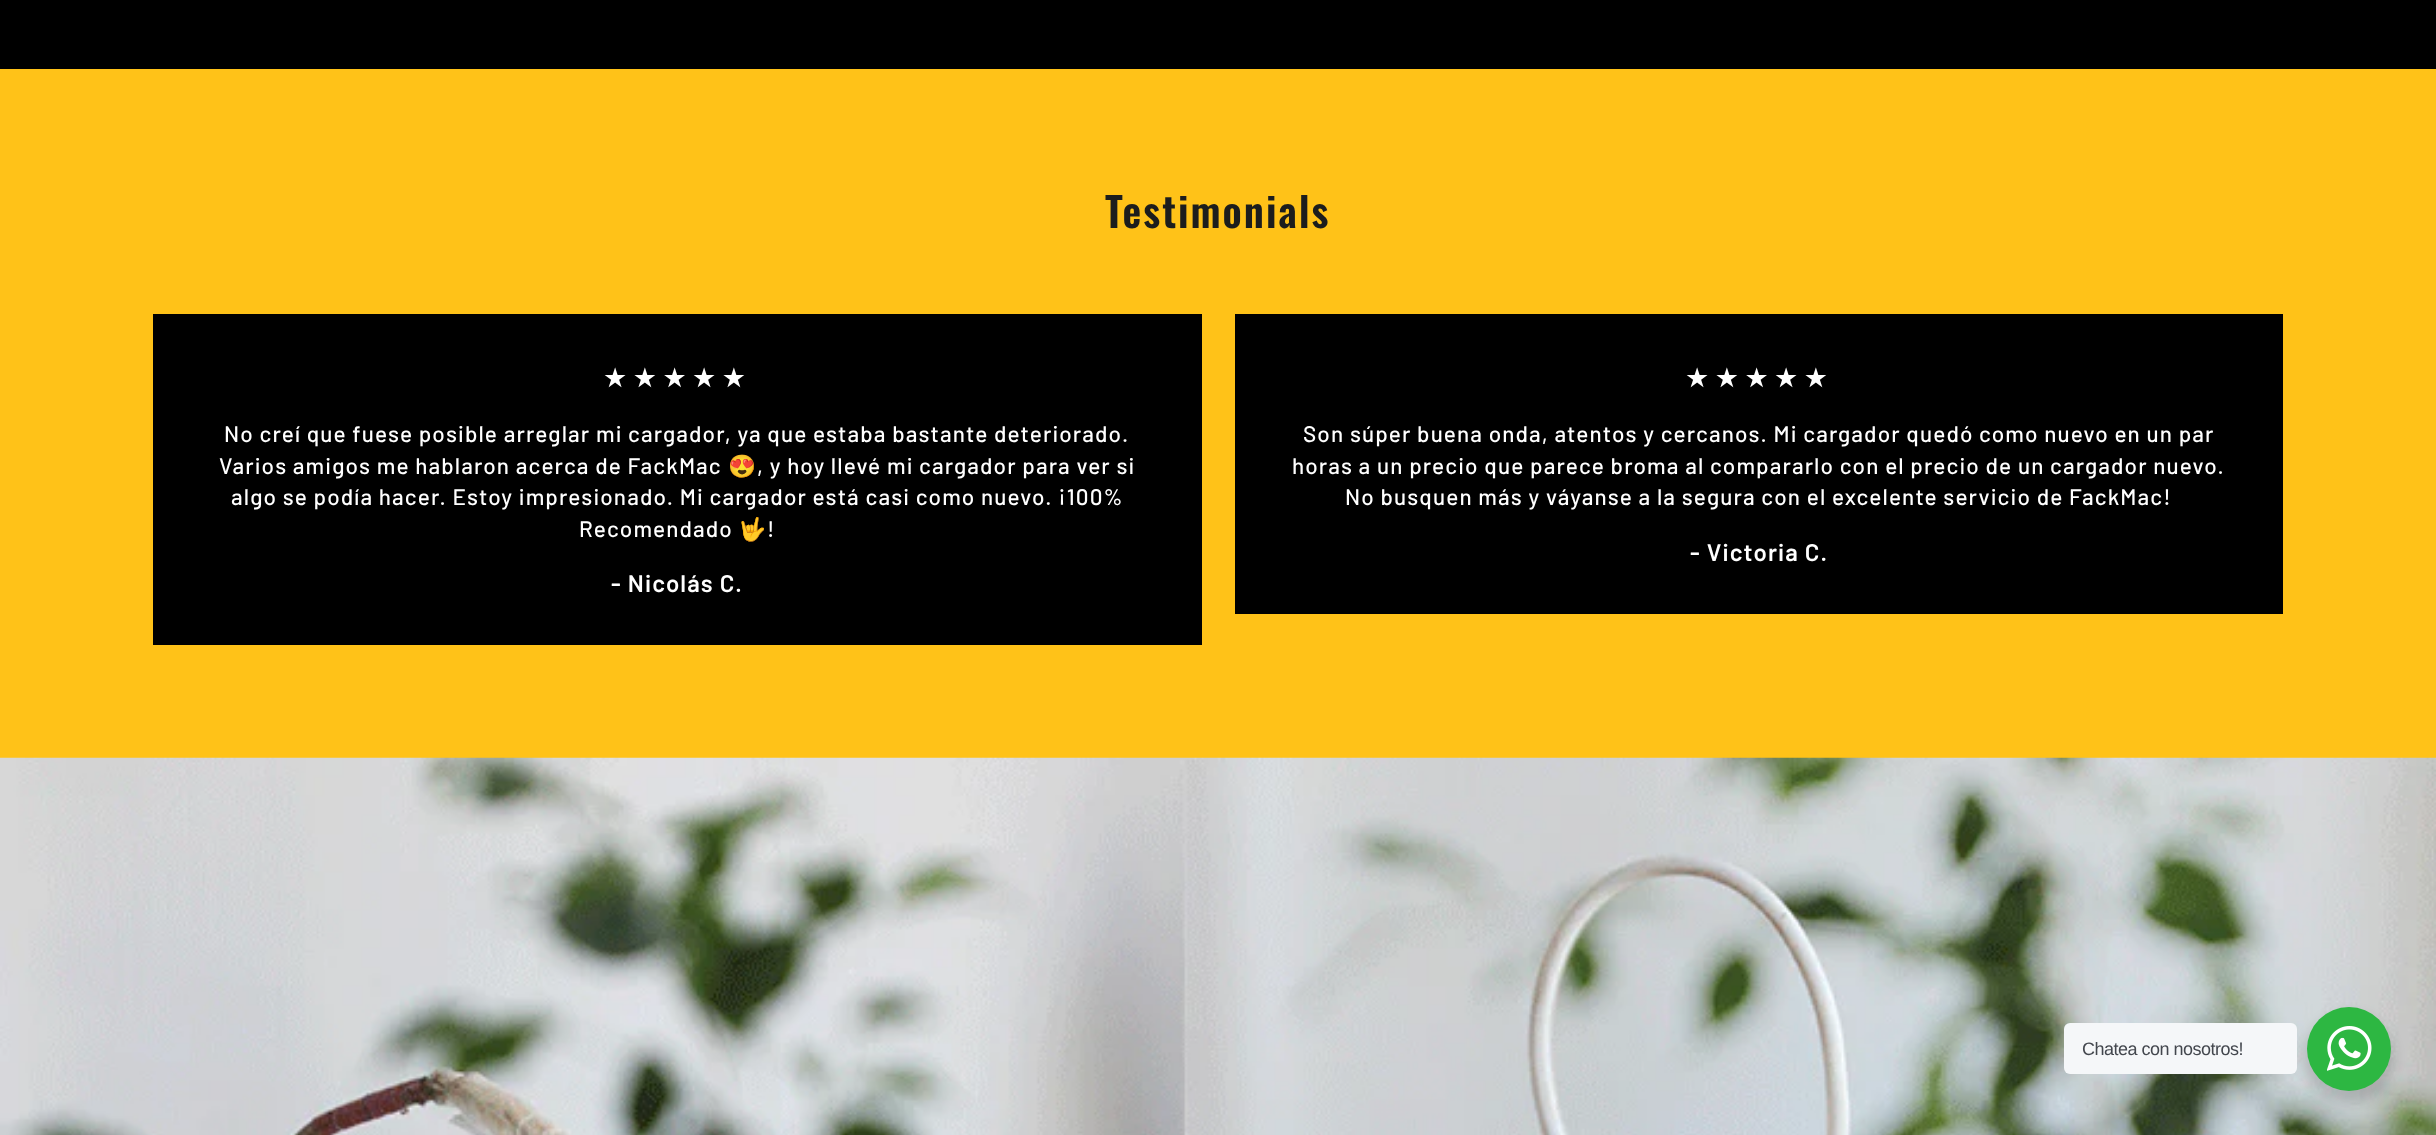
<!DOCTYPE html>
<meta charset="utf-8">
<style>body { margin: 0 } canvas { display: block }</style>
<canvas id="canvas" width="2436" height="1135"></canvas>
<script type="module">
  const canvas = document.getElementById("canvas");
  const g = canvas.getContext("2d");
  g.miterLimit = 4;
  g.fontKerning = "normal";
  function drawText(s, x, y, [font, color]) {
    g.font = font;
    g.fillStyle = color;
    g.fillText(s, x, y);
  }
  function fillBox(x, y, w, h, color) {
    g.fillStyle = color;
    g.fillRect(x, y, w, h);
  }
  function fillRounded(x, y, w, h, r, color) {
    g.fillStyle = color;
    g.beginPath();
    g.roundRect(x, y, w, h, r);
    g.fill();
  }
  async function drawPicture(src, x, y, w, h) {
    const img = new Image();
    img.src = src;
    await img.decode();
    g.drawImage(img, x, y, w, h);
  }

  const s1 = ["600 40.75px Oswald", "#1C1D1D"];
  const s2 = ["27px DejaVu Sans", "#FFFFFF"];
  const s3 = ["500 22.5px Barlow", "#FFFFFF"];
  const s4 = ["22.5px Noto Color Emoji", "#FFFFFF"];
  const s5 = ["600 24px Barlow", "#FFFFFF"];
  const s6 = ["18px Liberation Sans", "#43474E"];

  fillBox(0, 0, 2436, 1135, "#000000");
  fillBox(0, 69, 2436, 689, "#FFC218");
  g.letterSpacing = "2px";
  drawText("Testimonials", 1105, 228, s1);
  fillBox(153, 314, 1049, 331, "#000000");
  g.letterSpacing = "5.5px";
  drawText("★★★★★", 603, 387, s2);
  g.letterSpacing = "1.12px";
  drawText("No creí que fuese posible arreglar mi cargador, ya que estaba bastante deteriorado.", 224, 442, s3);
  drawText("Varios amigos me hablaron acerca de FackMac", 219, 474, s3);
  drawText("😍", 728, 474, s4);
  drawText(", y hoy llevé mi cargador para ver si", 757, 474, s3);
  drawText("algo se podía hacer. Estoy impresionado. Mi cargador está casi como nuevo. ¡100%", 231, 505, s3);
  drawText("Recomendado", 579, 537, s3);
  drawText("🤟", 738, 537, s4);
  drawText("!", 767, 537, s3);
  drawText("- Nicolás C.", 611, 592, s5);
  fillBox(1235, 314, 1048, 300, "#000000");
  g.letterSpacing = "5.5px";
  drawText("★★★★★", 1685, 387, s2);
  g.letterSpacing = "1.12px";
  drawText("Son súper buena onda, atentos y cercanos. Mi cargador quedó como nuevo en un par", 1303, 442, s3);
  drawText("horas a un precio que parece broma al compararlo con el precio de un cargador nuevo.", 1292, 474, s3);
  drawText("No busquen más y váyanse a la segura con el excelente servicio de FackMac!", 1345, 505, s3);
  drawText("- Victoria C.", 1690, 561, s5);
  await drawPicture("pic1.png", 0, 757, 2436, 378);
  g.fillStyle = "rgba(0, 0, 0, 0.14)";
  g.filter = "blur(6px)";
  g.beginPath();
  g.roundRect(2304, 1013, 90, 90, 45);
  g.fill();
  g.filter = "none";
  fillRounded(2064, 1023, 233, 51, 6, "#F5F7F9");
  g.letterSpacing = "-0.5px";
  drawText("Chatea con nosotros!", 2082, 1055, s6);
  g.fillStyle = "#2DB742";
  g.beginPath();
  g.arc(2349, 1049, 42, 0, Math.PI * 2);
  g.fill();
  await drawPicture("pic2.png", 2327, 1026, 45, 45);
</script>
